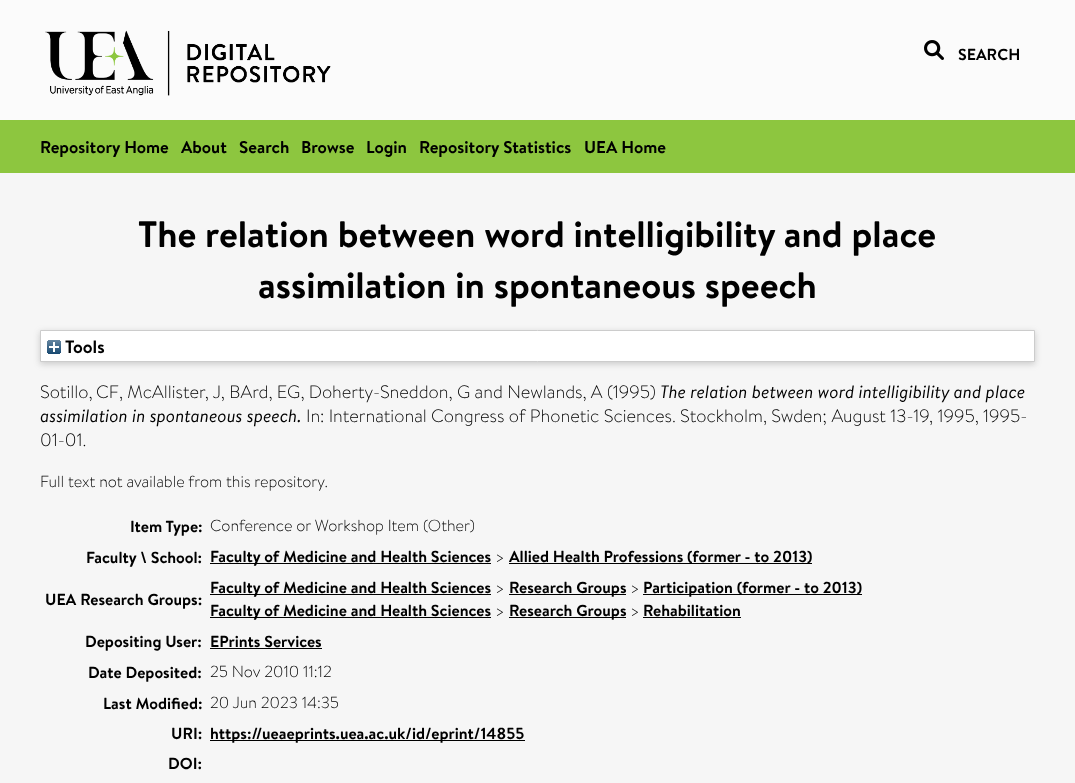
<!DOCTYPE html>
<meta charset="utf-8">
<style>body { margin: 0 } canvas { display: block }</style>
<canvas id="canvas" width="1075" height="783"></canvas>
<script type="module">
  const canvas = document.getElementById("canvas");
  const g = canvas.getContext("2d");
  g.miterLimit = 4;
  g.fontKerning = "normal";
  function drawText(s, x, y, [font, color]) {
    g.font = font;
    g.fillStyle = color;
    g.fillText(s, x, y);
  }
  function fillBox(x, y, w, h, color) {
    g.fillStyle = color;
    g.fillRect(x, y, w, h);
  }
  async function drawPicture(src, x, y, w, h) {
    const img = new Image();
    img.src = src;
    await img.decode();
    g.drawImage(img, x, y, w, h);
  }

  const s1 = ["bold 16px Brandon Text", "#000000"];
  const s2 = ["bold 17px Brandon Text", "#000000"];
  const s3 = ["bold 36.8px Brandon Text", "#000000"];
  const s4 = ["bold 18px Brandon Text", "#000000"];
  const s5 = ["300 18px Brandon Text", "#000000"];
  const s6 = ["italic 18px Brandon Text", "#000000"];
  const s7 = ["300 16px Brandon Text", "#000000"];

  fillBox(0, 0, 1075, 783, "#F6F6F6");
  fillBox(0, 0, 1075, 120, "#FBFBFB");
  await drawPicture("pic1.png", 45, 30, 286, 66);
  await drawPicture("pic2.png", 924, 40, 20, 20);
  drawText("SEARCH", 958, 60, s1);
  fillBox(0, 120, 1075, 53, "#8DC63F");
  drawText("Repository Home", 40, 153, s2);
  drawText("About", 181, 153, s2);
  drawText("Search", 239, 153, s2);
  drawText("Browse", 301, 153, s2);
  drawText("Login", 366, 153, s2);
  drawText("Repository Statistics", 419, 153, s2);
  drawText("UEA Home", 584, 153, s2);
  drawText("The relation between word intelligibility and place", 138, 247, s3);
  drawText("assimilation in spontaneous speech", 258, 298, s3);
  g.fillStyle = "rgba(100, 100, 100, 0.3)";
  g.filter = "blur(3px)";
  g.beginPath();
  g.rect(40, 332, 995, 32);
  g.fill();
  g.filter = "none";
  g.fillStyle = "#FFFFFF";
  g.beginPath();
  g.rect(40.5, 330.5, 994, 31);
  g.fill();
  g.strokeStyle = "#CCCCCC";
  g.stroke();
  await drawPicture("pic3.png", 47, 340, 14, 14);
  drawText("Tools", 65, 353, s4);
  g.wordSpacing = "-1px";
  drawText("Sotillo, CF", 40, 398, s5);
  g.wordSpacing = "0px";
  drawText(", McAllister, J, BArd, EG, Doherty-Sneddon, G and Newlands, A (1995)", 119, 398, s5);
  drawText("The relation between word intelligibility and place", 660, 398, s6);
  drawText("assimilation in spontaneous speech.", 40, 422, s6);
  drawText("In: International Congress of Phonetic Sciences. Stockholm, Swden; August 13-19, 1995, 1995-", 306, 422, s5);
  drawText("01-01.", 40, 446, s5);
  drawText("Full text not available from this repository.", 40, 487, s7);
  drawText("Item Type:", 130, 532, s1);
  drawText("Conference or Workshop Item (Other)", 210, 531, s7);
  drawText("Faculty \\ School:", 86, 563, s1);
  fillBox(210, 563, 281, 1, "#000000");
  drawText("Faculty of Medicine and Health Sciences", 210, 562, s1);
  drawText(">", 495, 562, s7);
  fillBox(509, 563, 303, 1, "#000000");
  drawText("Allied Health Professions (former - to 2013)", 509, 562, s1);
  drawText("UEA Research Groups:", 45, 605, s1);
  fillBox(210, 594, 281, 1, "#000000");
  drawText("Faculty of Medicine and Health Sciences", 210, 593, s1);
  drawText(">", 495, 593, s7);
  fillBox(509, 594, 117, 1, "#000000");
  drawText("Research Groups", 509, 593, s1);
  drawText(">", 630, 593, s7);
  fillBox(643, 594, 219, 1, "#000000");
  drawText("Participation (former - to 2013)", 643, 593, s1);
  fillBox(210, 617, 281, 1, "#000000");
  drawText("Faculty of Medicine and Health Sciences", 210, 616, s1);
  drawText(">", 495, 616, s7);
  fillBox(509, 617, 117, 1, "#000000");
  drawText("Research Groups", 509, 616, s1);
  drawText(">", 630, 616, s7);
  drawText("Rehabilitation", 643, 616, s1);
  fillBox(643, 617, 98, 1, "#000000");
  drawText("Depositing User:", 85, 647, s1);
  drawText("EPrints Services", 210, 647, s1);
  fillBox(210, 648, 112, 1, "#000000");
  drawText("Date Deposited:", 88, 678, s1);
  drawText("25 Nov 2010 11:12", 210, 677, s7);
  drawText("Last Modified:", 103, 709, s1);
  drawText("20 Jun 2023 14:35", 210, 708, s7);
  drawText("URI:", 171, 739, s1);
  fillBox(210, 740, 315, 1, "#000000");
  drawText("https://ueaeprints.uea.ac.uk/id/eprint/14855", 210, 739, s1);
  drawText("DOI:", 168, 769, s1);
</script>
